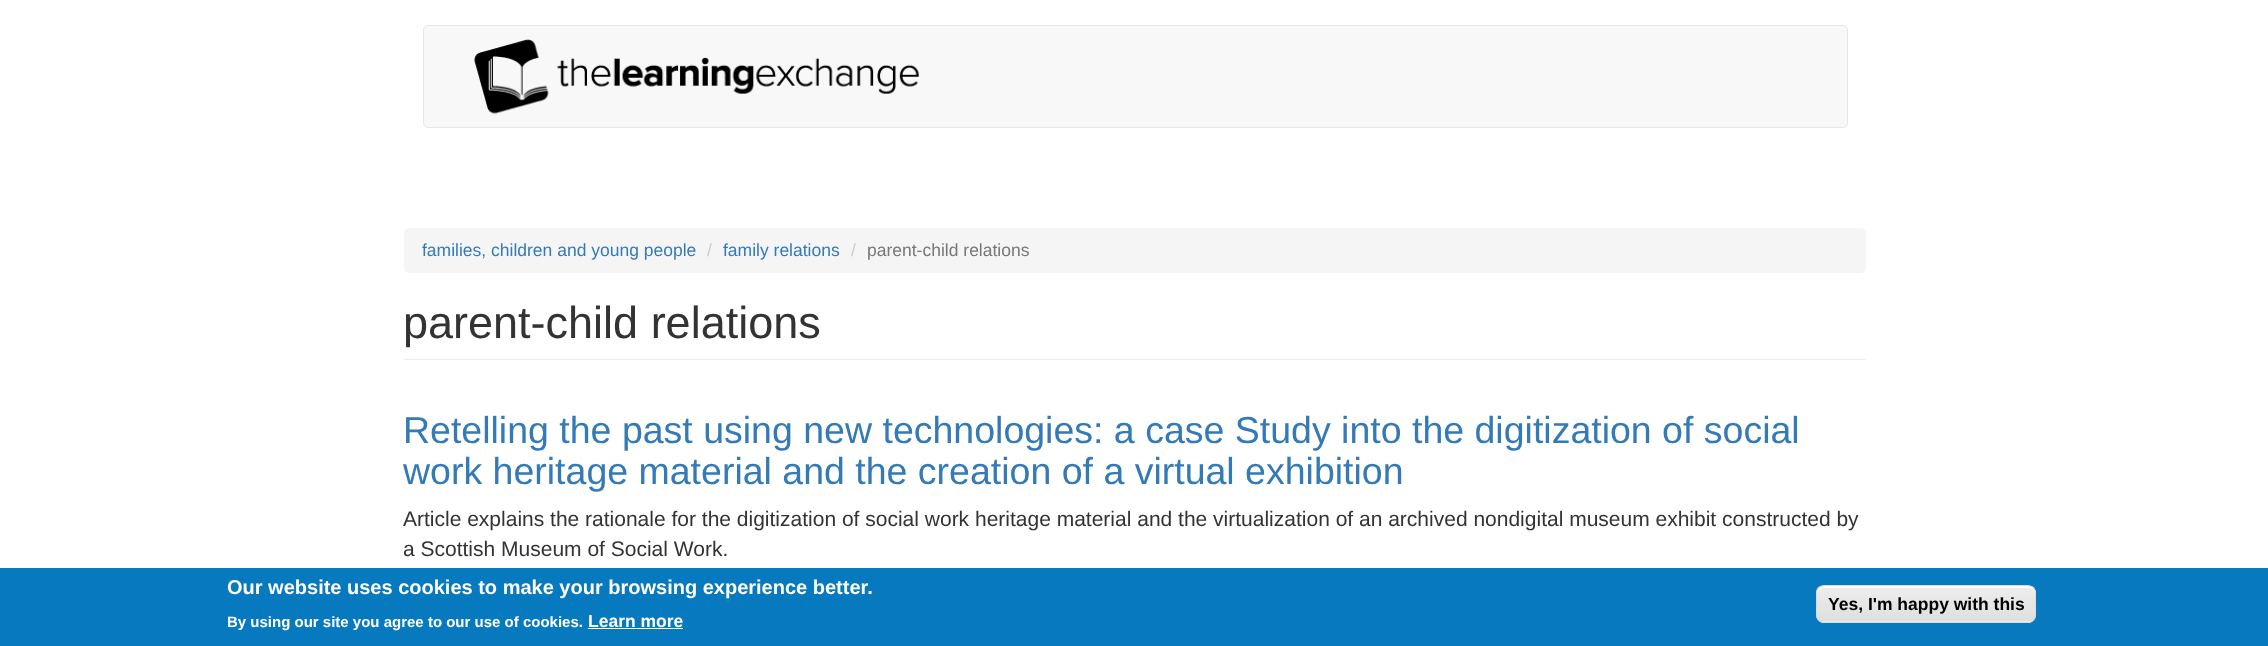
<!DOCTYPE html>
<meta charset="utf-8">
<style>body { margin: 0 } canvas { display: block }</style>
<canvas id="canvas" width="2268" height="646"></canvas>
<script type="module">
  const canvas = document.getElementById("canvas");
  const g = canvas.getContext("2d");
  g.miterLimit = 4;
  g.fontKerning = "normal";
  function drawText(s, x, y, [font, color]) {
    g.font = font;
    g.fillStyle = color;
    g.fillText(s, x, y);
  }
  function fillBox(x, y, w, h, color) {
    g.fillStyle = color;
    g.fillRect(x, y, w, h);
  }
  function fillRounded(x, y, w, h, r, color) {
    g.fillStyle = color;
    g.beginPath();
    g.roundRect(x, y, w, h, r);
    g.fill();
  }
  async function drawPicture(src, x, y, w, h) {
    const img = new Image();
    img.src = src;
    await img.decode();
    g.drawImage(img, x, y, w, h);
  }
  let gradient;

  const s1 = ["17.5px Liberation Sans", "#337AB7"];
  const s2 = ["17.5px Liberation Sans", "#CCCCCC"];
  const s3 = ["17.5px Liberation Sans", "#777777"];
  const s4 = ["45px Liberation Sans", "#333333"];
  const s5 = ["37.5px Liberation Sans", "#337AB7"];
  const s6 = ["21px Liberation Sans", "#333333"];
  const s7 = ["bold 20px Liberation Sans", "#FFFFFF"];
  const s8 = ["bold 15px Liberation Sans", "#FFFFFF"];
  const s9 = ["bold 17.5px Liberation Sans", "#FFFFFF"];
  const s10 = ["bold 17.5px Liberation Sans", "#000000"];

  fillBox(0, 0, 2268, 646, "#FFFFFF");
  g.fillStyle = "#F8F8F8";
  g.beginPath();
  g.roundRect(423.5, 25.5, 1424, 102, 4.5);
  g.fill();
  g.strokeStyle = "#E7E7E7";
  g.stroke();
  await drawPicture("pic1.png", 474, 39, 445, 75);
  fillRounded(404, 228, 1462, 45, 5, "#F5F5F5");
  drawText("families, children and young people", 422, 256, s1);
  drawText("/", 707, 256, s2);
  drawText("family relations", 723, 256, s1);
  drawText("/", 851, 256, s2);
  drawText("parent-child relations", 867, 256, s3);
  fillBox(404, 359, 1462, 1, "#EEEEEE");
  drawText("parent-child relations", 403, 338, s4);
  drawText("Retelling the past using new technologies: a case Study into the digitization of social", 403, 443, s5);
  drawText("work heritage material and the creation of a virtual exhibition", 403, 484, s5);
  drawText("Article explains the rationale for the digitization of social work heritage material and the virtualization of an archived nondigital museum exhibit constructed by", 403, 526, s6);
  drawText("a Scottish Museum of Social Work.", 403, 556, s6);
  fillBox(0, 568, 2268, 78, "#0779BF");
  drawText("Our website uses cookies to make your browsing experience better.", 227, 594, s7);
  drawText("By using our site you agree to our use of cookies.", 227, 627, s8);
  drawText("Learn more", 588, 627, s9);
  fillBox(588, 628, 95, 1, "#FFFFFF");
  g.save();
  g.beginPath();
  g.roundRect(1816, 585, 220, 38, 8);
  g.clip();
  gradient = g.createLinearGradient(1926, 586, 1926, 621);
  gradient.addColorStop(0.05, "#EDEDED");
  gradient.addColorStop(1, "#DFDFDF");
  g.fillStyle = gradient;
  g.fillRect(1816, 586, 220, 35);
  gradient = g.createLinearGradient(1926, 621, 1926, 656);
  gradient.addColorStop(0.05, "#EDEDED");
  gradient.addColorStop(1, "#DFDFDF");
  g.fillStyle = gradient;
  g.fillRect(1816, 621, 220, 2);
  g.restore();
  g.beginPath();
  g.moveTo(1824, 588);
  g.lineTo(2029, 588);
  g.bezierCurveTo(2032, 588, 2035, 590, 2035, 594);
  g.lineTo(2035, 592);
  g.bezierCurveTo(2035, 589, 2032, 586, 2029, 586);
  g.lineTo(1824, 586);
  g.bezierCurveTo(1821, 586, 1818, 589, 1818, 592);
  g.lineTo(1818, 594);
  g.bezierCurveTo(1818, 590, 1820, 588, 1824, 588);
  g.closePath();
  g.fill();
  g.beginPath();
  g.roundRect(1816.5, 585.5, 219, 37, 7.5);
  g.strokeStyle = "#DCDCDC";
  g.stroke();
  drawText("Yes, I'm happy with this", 1828, 610, s10);
</script>
